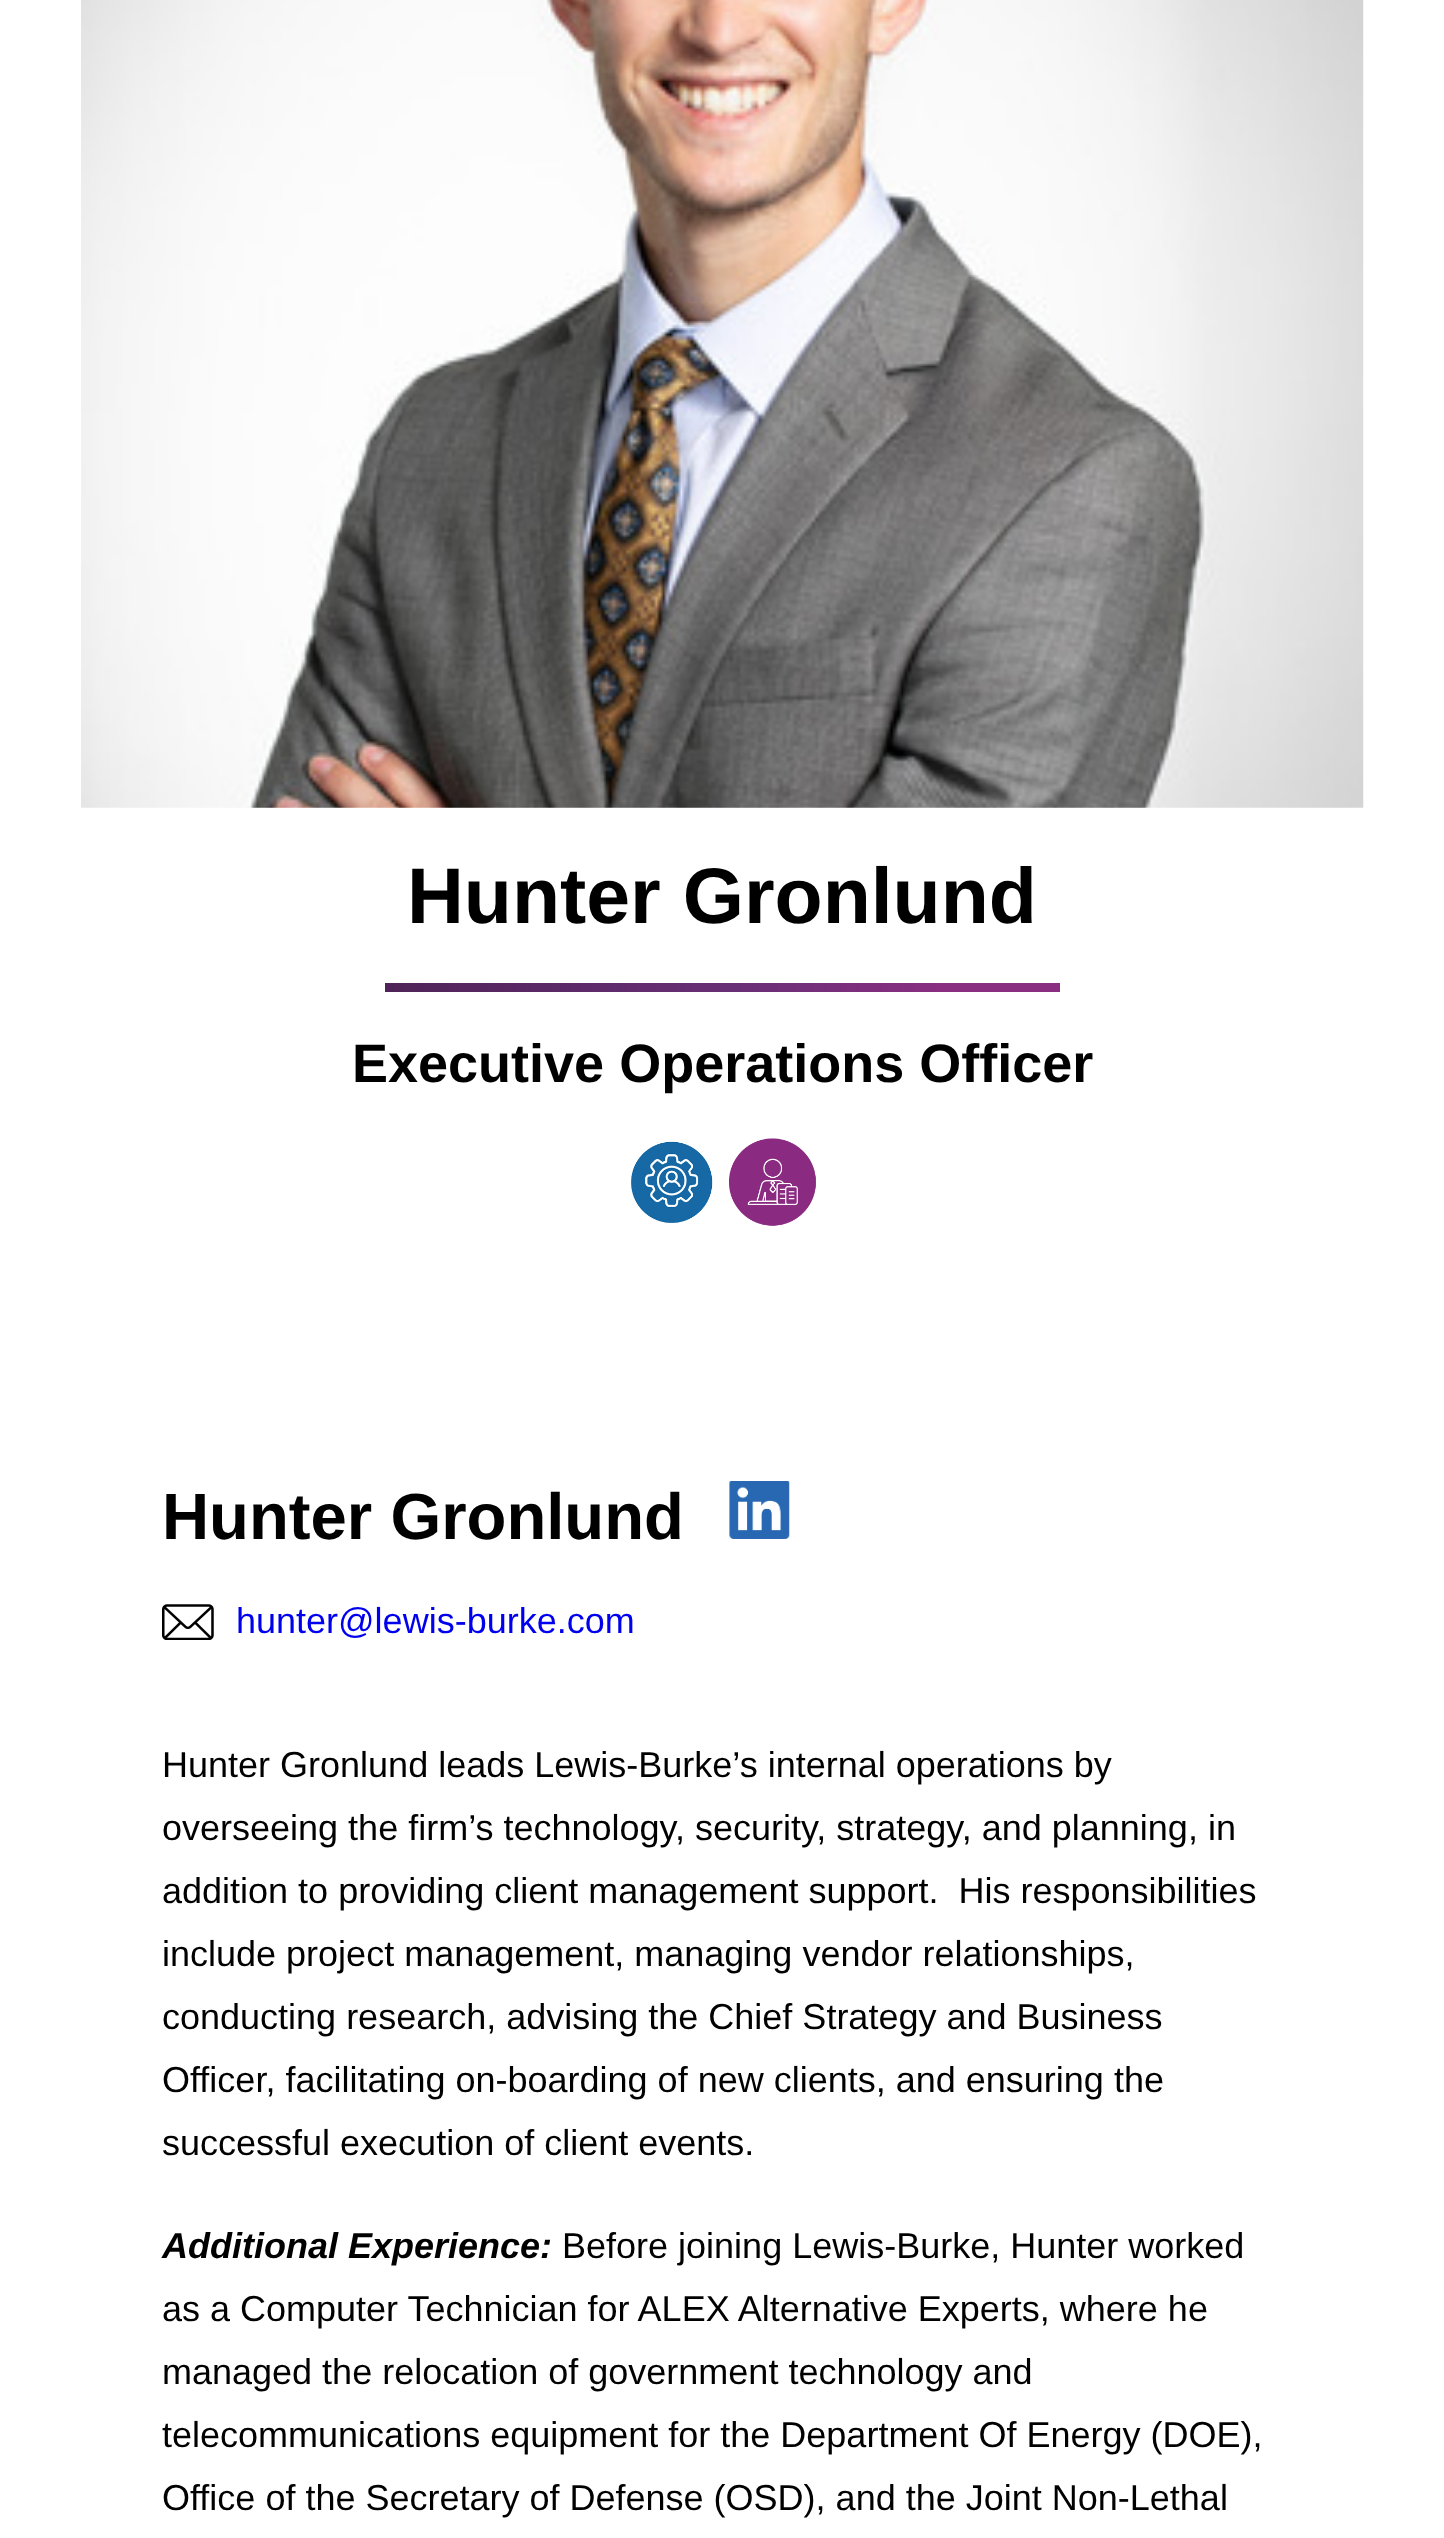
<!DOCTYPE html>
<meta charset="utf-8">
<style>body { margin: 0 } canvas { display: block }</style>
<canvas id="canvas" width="1444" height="2538"></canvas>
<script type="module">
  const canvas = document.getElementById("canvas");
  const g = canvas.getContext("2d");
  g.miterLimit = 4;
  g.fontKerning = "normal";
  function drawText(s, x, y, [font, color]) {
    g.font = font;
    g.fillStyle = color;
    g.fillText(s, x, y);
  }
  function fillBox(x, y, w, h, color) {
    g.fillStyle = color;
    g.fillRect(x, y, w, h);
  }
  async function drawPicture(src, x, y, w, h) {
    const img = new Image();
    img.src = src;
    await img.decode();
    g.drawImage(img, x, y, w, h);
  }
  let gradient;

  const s1 = ["bold 78.75px Liberation Sans", "#000000"];
  const s2 = ["bold 54px Liberation Sans", "#000000"];
  const s3 = ["bold 65.25px Liberation Sans", "#000000"];
  const s4 = ["36px Liberation Sans", "#0000EE"];
  const s5 = ["36px Liberation Sans", "#000000"];
  const s6 = ["italic bold 36px Liberation Sans", "#000000"];

  fillBox(0, 0, 1444, 2538, "#FFFFFF");
  await drawPicture("pic1.png", 81, 0, 1283, 808);
  drawText("Hunter Gronlund", 407, 923, s1);
  gradient = g.createLinearGradient(385, 988, 1060, 988);
  gradient.addColorStop(0, "#4F2358");
  gradient.addColorStop(0.52, "#692F76");
  gradient.addColorStop(0.82, "#892E80");
  gradient.addColorStop(1, "#892E80");
  g.fillStyle = gradient;
  g.fillRect(385, 983, 675, 9);
  drawText("Executive Operations Officer", 352, 1082, s2);
  await drawPicture("pic2.png", 631, 1141, 82, 82);
  await drawPicture("pic3.png", 729, 1138, 87, 88);
  drawText("Hunter Gronlund", 162, 1539, s3);
  await drawPicture("pic4.png", 729, 1481, 61, 58);
  await drawPicture("pic5.png", 162, 1604, 52, 36);
  drawText("hunter@lewis-burke.com", 236, 1633, s4);
  drawText("Hunter Gronlund leads Lewis-Burke’s internal operations by", 162, 1777, s5);
  drawText("overseeing the firm’s technology, security, strategy, and planning, in", 162, 1840, s5);
  drawText("addition to providing client management support.  His responsibilities", 162, 1903, s5);
  drawText("include project management, managing vendor relationships,", 162, 1966, s5);
  drawText("conducting research, advising the Chief Strategy and Business", 162, 2029, s5);
  drawText("Officer, facilitating on-boarding of new clients, and ensuring the", 162, 2092, s5);
  drawText("successful execution of client events.", 162, 2155, s5);
  drawText("Additional Experience:", 162, 2258, s6);
  drawText("Before joining Lewis-Burke, Hunter worked", 562, 2258, s5);
  drawText("as a Computer Technician for ALEX Alternative Experts, where he", 162, 2321, s5);
  drawText("managed the relocation of government technology and", 162, 2384, s5);
  drawText("telecommunications equipment for the Department Of Energy (DOE),", 162, 2447, s5);
  drawText("Office of the Secretary of Defense (OSD), and the Joint Non-Lethal", 162, 2510, s5);
</script>
